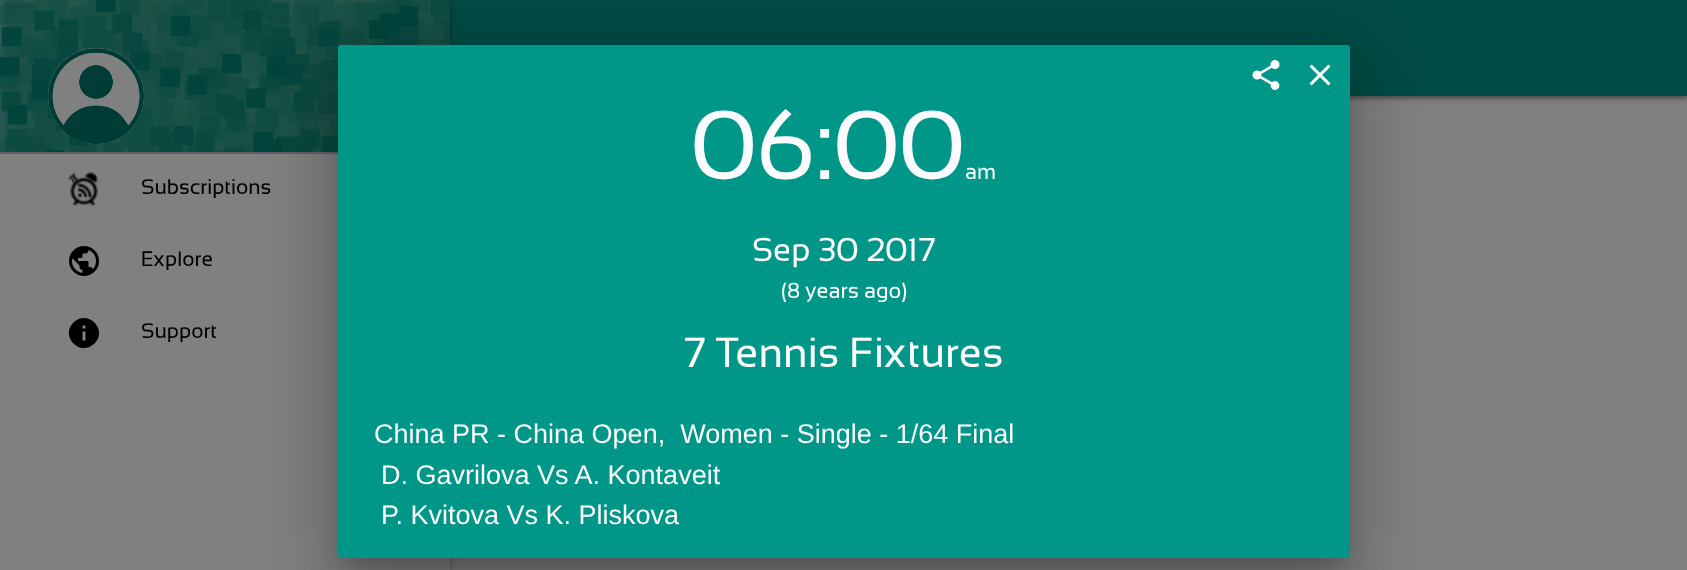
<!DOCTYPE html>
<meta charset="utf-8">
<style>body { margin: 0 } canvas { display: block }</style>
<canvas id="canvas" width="1687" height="570"></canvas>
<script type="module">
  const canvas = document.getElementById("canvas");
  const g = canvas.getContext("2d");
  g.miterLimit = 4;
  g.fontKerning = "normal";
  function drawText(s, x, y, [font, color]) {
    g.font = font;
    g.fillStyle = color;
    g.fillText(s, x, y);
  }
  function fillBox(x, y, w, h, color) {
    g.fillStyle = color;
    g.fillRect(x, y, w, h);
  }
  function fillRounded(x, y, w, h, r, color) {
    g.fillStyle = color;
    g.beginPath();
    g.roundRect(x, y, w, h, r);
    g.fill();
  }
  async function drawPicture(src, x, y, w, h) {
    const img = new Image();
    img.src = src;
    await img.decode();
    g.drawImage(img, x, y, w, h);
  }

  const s1 = ["21px Sansation", "#000000"];
  const s2 = ["97.5px Sansation", "#FBFBFE"];
  const s3 = ["21.75px Sansation", "#FBFBFE"];
  const s4 = ["33px Sansation", "#FBFBFE"];
  const s5 = ["42px Sansation", "#FBFBFE"];
  const s6 = ["27px Liberation Sans", "#FBFBFE"];

  fillBox(0, 0, 1687, 570, "#808080");
  g.fillStyle = "rgba(0, 0, 0, 0.2)";
  g.filter = "blur(4px)";
  g.beginPath();
  g.rect(0, 2, 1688, 96);
  g.fill();
  g.filter = "none";
  g.fillStyle = "rgba(0, 0, 0, 0.12)";
  g.filter = "blur(1px)";
  g.beginPath();
  g.rect(3, 8, 1682, 90);
  g.fill();
  g.filter = "none";
  g.fillStyle = "rgba(0, 0, 0, 0.14)";
  g.filter = "blur(1.5px)";
  g.beginPath();
  g.rect(0, 3, 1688, 96);
  g.fill();
  g.filter = "none";
  fillBox(450, 0, 1237, 96, "#004B44");
  g.fillStyle = "rgba(0, 0, 0, 0.2)";
  g.filter = "blur(4px)";
  g.beginPath();
  g.rect(0, 2, 450, 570);
  g.fill();
  g.filter = "none";
  g.fillStyle = "rgba(0, 0, 0, 0.14)";
  g.filter = "blur(1.5px)";
  g.beginPath();
  g.rect(0, 3, 450, 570);
  g.fill();
  g.filter = "none";
  fillBox(0, 154, 450, 416, "#808080");
  await drawPicture("pic1.png", 0, 0, 450, 152);
  g.beginPath();
  g.arc(96, 96, 48, 0, Math.PI * 2);
  g.fill();
  await drawPicture("pic2.png", 48, 48, 96, 96);
  await drawPicture("pic3.png", 48, 48, 96, 96);
  fillBox(0, 152, 338, 2, "#616161");
  await drawPicture("pic4.png", 68, 172, 30, 34);
  drawText("Subscriptions", 141, 194, s1);
  await drawPicture("pic5.png", 69, 246, 30, 30);
  drawText("Explore", 141, 266, s1);
  g.beginPath();
  g.moveTo(85.5, 328.5);
  g.lineTo(85.5, 325.5);
  g.lineTo(82.5, 325.5);
  g.lineTo(82.5, 328.5);
  g.closePath();
  g.moveTo(85.5, 340.5);
  g.lineTo(85.5, 331.5);
  g.lineTo(82.5, 331.5);
  g.lineTo(82.5, 340.5);
  g.closePath();
  g.moveTo(73.5, 322.5);
  g.bezierCurveTo(87.5, 308.5, 108.5, 329.5, 94.5, 343.5);
  g.bezierCurveTo(80.5, 357.5, 59.5, 336.5, 73.5, 322.5);
  g.closePath();
  g.fill();
  drawText("Support", 141, 338, s1);
  g.fillStyle = "rgba(0, 0, 0, 0.2)";
  g.filter = "blur(11px)";
  g.beginPath();
  g.rect(348, 72, 992, 492);
  g.fill();
  g.filter = "none";
  g.fillStyle = "rgba(0, 0, 0, 0.12)";
  g.filter = "blur(34.5px)";
  g.beginPath();
  g.roundRect(326, 47, 1036, 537, 15);
  g.fill();
  g.filter = "none";
  g.fillStyle = "rgba(0, 0, 0, 0.14)";
  g.filter = "blur(28.5px)";
  g.beginPath();
  g.roundRect(333, 77, 1022, 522, 8);
  g.fill();
  g.filter = "none";
  fillRounded(338, 45, 1012, 513, 3, "#009688");
  await drawPicture("pic6.png", 1252, 60, 28, 30);
  await drawPicture("pic7.png", 1309, 64, 22, 22);
  drawText("06:00", 691, 179, s2);
  drawText("am", 965, 179, s3);
  drawText("Sep 30 2017", 752, 261, s4);
  drawText("(8 years ago)", 781, 298, s3);
  drawText("7 Tennis Fixtures", 683, 367, s5);
  drawText("China PR - China Open,  Women - Single - 1/64 Final", 374, 443, s6);
  drawText("D. Gavrilova Vs A. Kontaveit", 381, 484, s6);
  drawText("P. Kvitova Vs K. Pliskova", 381, 524, s6);
</script>
